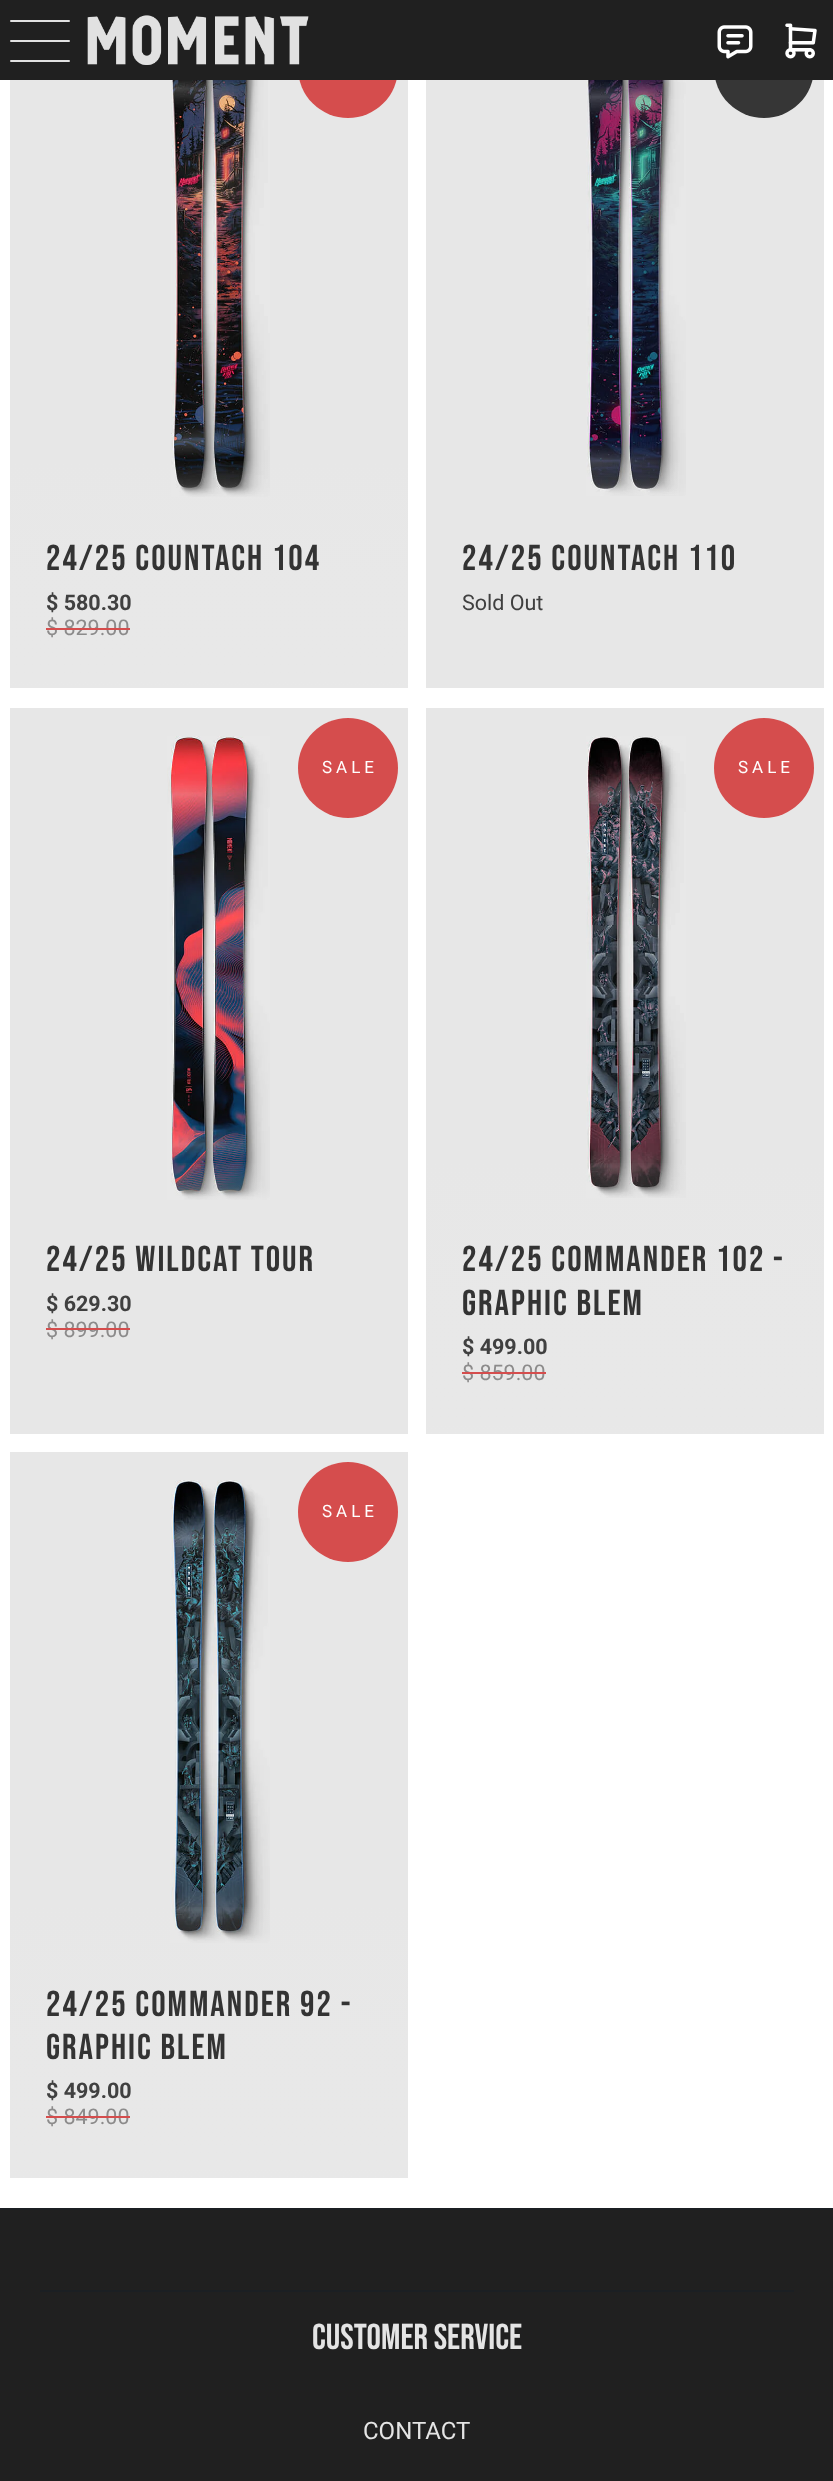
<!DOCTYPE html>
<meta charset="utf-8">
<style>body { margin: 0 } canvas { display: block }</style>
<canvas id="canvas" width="833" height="2481"></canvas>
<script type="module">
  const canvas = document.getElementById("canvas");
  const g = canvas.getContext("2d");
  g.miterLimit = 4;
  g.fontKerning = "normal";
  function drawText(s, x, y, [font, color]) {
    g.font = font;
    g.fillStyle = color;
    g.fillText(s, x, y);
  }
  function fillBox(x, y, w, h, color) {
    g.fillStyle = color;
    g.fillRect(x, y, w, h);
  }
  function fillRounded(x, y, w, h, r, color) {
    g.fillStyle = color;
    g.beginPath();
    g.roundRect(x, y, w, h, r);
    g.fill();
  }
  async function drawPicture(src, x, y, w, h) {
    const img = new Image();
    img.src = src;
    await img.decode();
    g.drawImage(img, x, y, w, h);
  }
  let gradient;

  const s1 = ["36px Bebas Neue", "#333333"];
  const s2 = ["bold 21.5px Roboto", "#404040"];
  const s3 = ["21.5px Roboto", "#8C8B8B"];
  const s4 = ["21.5px Roboto", "#404040"];
  const s5 = ["17px Roboto", "#FFFFFF"];
  const s6 = ["36px Bebas Neue", "#E4E4E4"];
  const s7 = ["24px Roboto", "#E4E4E4"];

  fillBox(0, 0, 833, 2481, "#FFFFFF");
  fillBox(10, 80, 398, 601, "#E7E7E7");
  g.fillStyle = "#D54D4D";
  g.beginPath();
  g.arc(348, 68, 50, 0, Math.PI * 2);
  g.fill();
  fillBox(426, 80, 398, 608, "#E7E7E7");
  g.fillStyle = "#363636";
  g.beginPath();
  g.arc(764, 68, 50, 0, Math.PI * 2);
  g.fill();
  fillBox(0, 0, 833, 80, "#202020");
  fillRounded(10, 20, 60, 2, 1, "#E1E1E1");
  fillRounded(10, 40, 60, 2, 1, "#E1E1E1");
  fillRounded(10, 60, 60, 2, 1, "#E1E1E1");
  await drawPicture("pic1.png", 87, 15, 222, 50);
  await drawPicture("pic2.png", 717, 25, 36, 34);
  await drawPicture("pic3.png", 785, 23, 32, 36);
  await drawPicture("pic4.png", 171, 80, 99, 417);
  gradient = g.createLinearGradient(209, 458, 209, 688);
  gradient.addColorStop(0, "rgba(232, 232, 232, 0)");
  gradient.addColorStop(0.5, "rgba(232, 232, 232, 0.9)");
  gradient.addColorStop(1, "#E8E8E8");
  g.fillStyle = gradient;
  g.fillRect(10, 461, 398, 227);
  g.letterSpacing = "2px";
  drawText("24/25 COUNTACH 104", 46, 570, s1);
  g.letterSpacing = "0px";
  drawText("$ 580.30", 46, 610, s2);
  drawText("$ 829.00", 46, 635, s3);
  fillBox(46, 628, 84, 2, "#D54D4D");
  await drawPicture("pic5.png", 586, 80, 100, 416);
  gradient = g.createLinearGradient(625, 458, 625, 664);
  gradient.addColorStop(0, "rgba(232, 232, 232, 0)");
  gradient.addColorStop(0.5, "rgba(232, 232, 232, 0.9)");
  gradient.addColorStop(1, "#E8E8E8");
  g.fillStyle = gradient;
  g.fillRect(590, 460, 89, 35);
  g.letterSpacing = "2px";
  drawText("24/25 COUNTACH 110", 462, 570, s1);
  g.letterSpacing = "0px";
  drawText("Sold Out", 462, 610, s4);
  fillBox(10, 708, 398, 726, "#E7E7E7");
  await drawPicture("pic6.png", 167, 736, 103, 464);
  g.fillStyle = "#D54D4D";
  g.beginPath();
  g.arc(348, 768, 50, 0, Math.PI * 2);
  g.fill();
  g.letterSpacing = "4px";
  drawText("SALE", 322, 773, s5);
  gradient = g.createLinearGradient(209, 1160, 209, 1390);
  gradient.addColorStop(0, "rgba(232, 232, 232, 0)");
  gradient.addColorStop(0.5, "rgba(232, 232, 232, 0.9)");
  gradient.addColorStop(1, "#E8E8E8");
  g.fillStyle = gradient;
  g.fillRect(173, 1163, 89, 37);
  g.letterSpacing = "2px";
  drawText("24/25 WILDCAT TOUR", 46, 1271, s1);
  g.letterSpacing = "0px";
  drawText("$ 629.30", 46, 1311, s2);
  drawText("$ 899.00", 46, 1337, s3);
  fillBox(46, 1328, 84, 2, "#D54D4D");
  fillBox(426, 708, 398, 718, "#E7E7E7");
  await drawPicture("pic7.png", 586, 736, 100, 462);
  g.fillStyle = "#D54D4D";
  g.beginPath();
  g.arc(764, 768, 50, 0, Math.PI * 2);
  g.fill();
  g.letterSpacing = "4px";
  drawText("SALE", 738, 773, s5);
  gradient = g.createLinearGradient(625, 1160, 625, 1434);
  gradient.addColorStop(0, "rgba(232, 232, 232, 0)");
  gradient.addColorStop(0.5, "rgba(232, 232, 232, 0.9)");
  gradient.addColorStop(1, "#E8E8E8");
  g.fillStyle = gradient;
  g.fillRect(426, 1163, 398, 271);
  g.letterSpacing = "2px";
  drawText("24/25 COMMANDER 102 -", 462, 1271, s1);
  drawText("GRAPHIC BLEM", 462, 1315, s1);
  g.letterSpacing = "0px";
  drawText("$ 499.00", 462, 1354, s2);
  drawText("$ 859.00", 462, 1380, s3);
  fillBox(462, 1372, 84, 2, "#D54D4D");
  fillBox(10, 1452, 398, 718, "#E7E7E7");
  await drawPicture("pic8.png", 170, 1480, 100, 463);
  g.fillStyle = "#D54D4D";
  g.beginPath();
  g.arc(348, 1512, 50, 0, Math.PI * 2);
  g.fill();
  g.letterSpacing = "4px";
  drawText("SALE", 322, 1517, s5);
  gradient = g.createLinearGradient(209, 1904, 209, 2178);
  gradient.addColorStop(0, "rgba(232, 232, 232, 0)");
  gradient.addColorStop(0.5, "rgba(232, 232, 232, 0.9)");
  gradient.addColorStop(1, "#E8E8E8");
  g.fillStyle = gradient;
  g.fillRect(10, 1907, 398, 271);
  g.letterSpacing = "2px";
  drawText("24/25 COMMANDER 92 -", 46, 2016, s1);
  drawText("GRAPHIC BLEM", 46, 2059, s1);
  g.letterSpacing = "0px";
  drawText("$ 499.00", 46, 2098, s2);
  drawText("$ 849.00", 46, 2124, s3);
  fillBox(46, 2116, 84, 2, "#D54D4D");
  fillBox(0, 2210, 833, 271, "#202020");
  fillBox(0, 2208, 833, 2, "#1B1F23");
  fillBox(40, 2290, 754, 2, "#1B1F23");
  drawText("CUSTOMER SERVICE", 312, 2349, s6);
  drawText("CONTACT", 363, 2439, s7);
</script>
